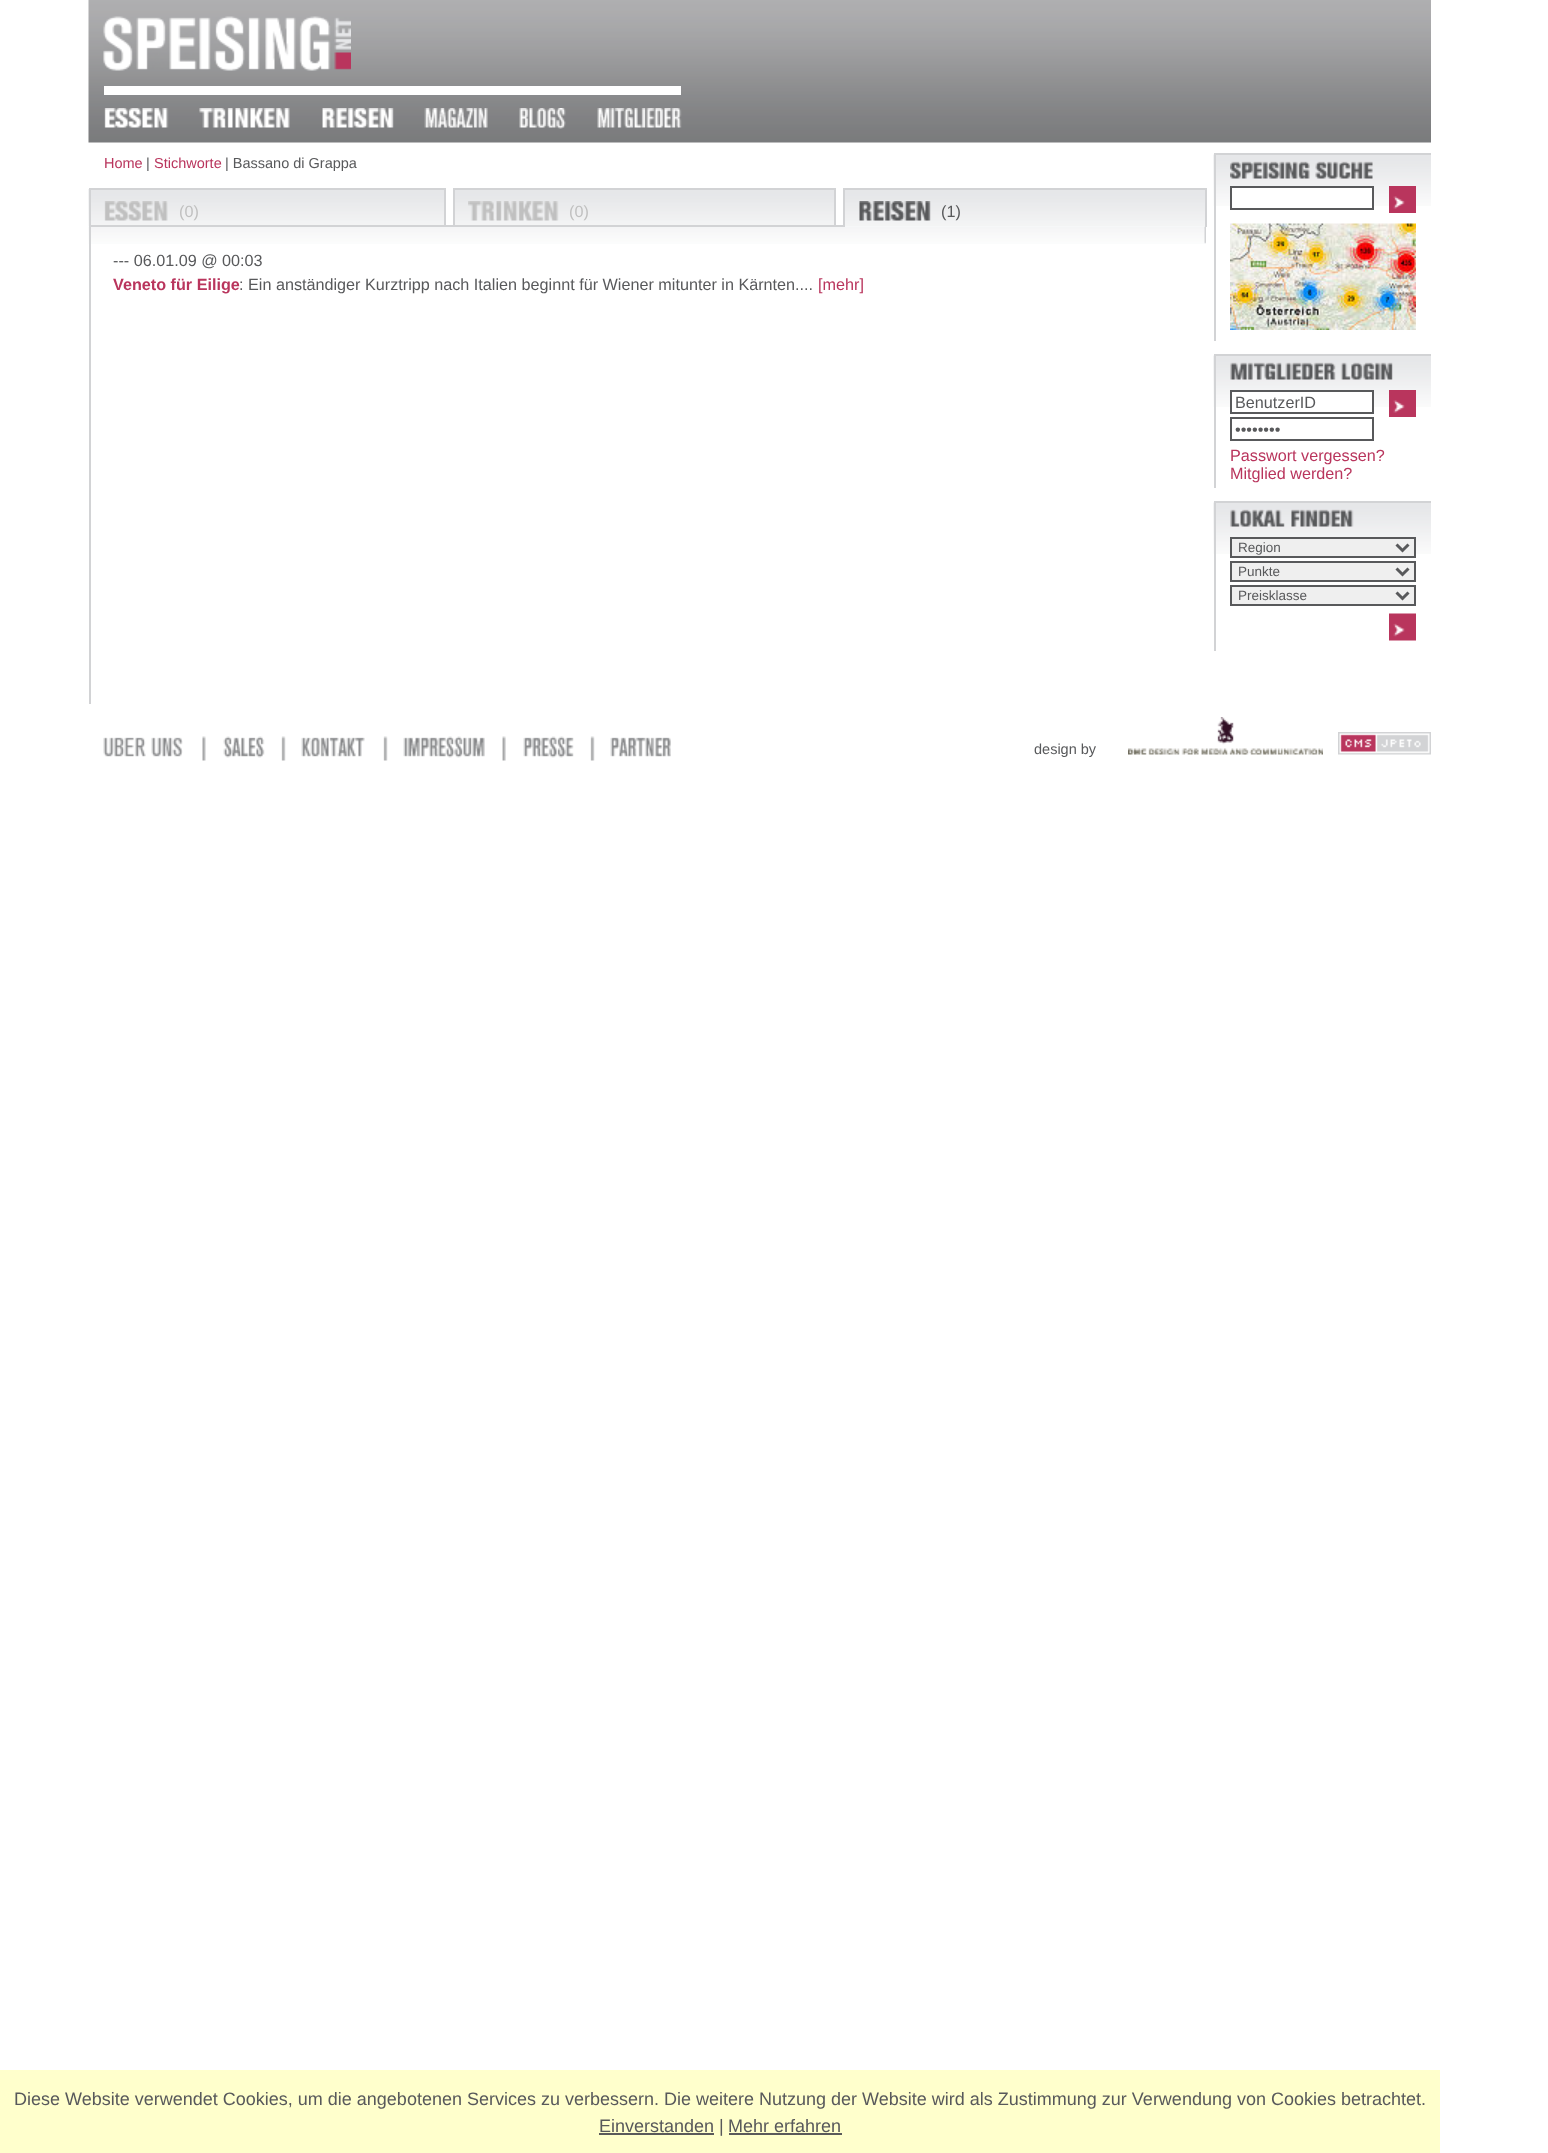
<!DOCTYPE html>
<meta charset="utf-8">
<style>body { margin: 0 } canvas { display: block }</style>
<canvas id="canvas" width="1548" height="2153"></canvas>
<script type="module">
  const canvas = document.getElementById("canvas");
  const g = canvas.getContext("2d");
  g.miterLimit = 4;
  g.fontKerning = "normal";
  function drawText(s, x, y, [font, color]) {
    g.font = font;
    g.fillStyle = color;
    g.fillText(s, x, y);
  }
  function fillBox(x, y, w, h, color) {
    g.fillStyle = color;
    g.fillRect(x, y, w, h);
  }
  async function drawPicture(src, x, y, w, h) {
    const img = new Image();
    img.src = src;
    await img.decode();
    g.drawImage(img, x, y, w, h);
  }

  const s1 = ["14.5px Liberation Sans", "#B9355D"];
  const s2 = ["14.5px Liberation Sans", "#58595B"];
  const s3 = ["16.2px Liberation Sans", "#C0C0C0"];
  const s4 = ["16.2px Liberation Sans", "#58595B"];
  const s5 = ["bold 16.2px Liberation Sans", "#B9355D"];
  const s6 = ["16.2px Liberation Sans", "#B9355D"];
  const s7 = ["13.5px Liberation Sans", "#58595B"];
  const s8 = ["18px Liberation Sans", "#58595B"];

  fillBox(0, 0, 1548, 2153, "#FFFFFF");
  await drawPicture("pic1.png", 88, 0, 1343, 143);
  fillBox(104, 86, 577, 9, "#FFFFFF");
  await drawPicture("pic2.png", 103, 16, 248, 55);
  await drawPicture("pic3.png", 104, 108, 65, 20);
  await drawPicture("pic4.png", 199, 108, 91, 20);
  await drawPicture("pic5.png", 322, 108, 72, 20);
  await drawPicture("pic6.png", 424, 108, 64, 20);
  await drawPicture("pic7.png", 519, 108, 47, 21);
  await drawPicture("pic8.png", 597, 108, 85, 20);
  drawText("Home", 104, 168, s1);
  drawText("|", 146, 168, s2);
  drawText("Stichworte", 154, 168, s1);
  drawText("| Bassano di Grappa", 225, 168, s2);
  await drawPicture("pic9.png", 88, 189, 356, 37);
  await drawPicture("pic15.png", 88, 226, 1118, 18);
  g.strokeStyle = "#D2D3D5";
  g.lineWidth = 2;
  g.strokeRect(90, 189, 355, 37);
  await drawPicture("pic10.png", 104, 201, 64, 20);
  drawText("(0)", 179, 217, s3);
  await drawPicture("pic11.png", 455, 190, 379, 35);
  g.strokeRect(454, 189, 381, 37);
  await drawPicture("pic12.png", 468, 201, 91, 20);
  drawText("(0)", 569, 217, s3);
  await drawPicture("pic13.png", 845, 190, 360, 37);
  fillBox(843, 188, 363, 2, "#D2D3D5");
  fillBox(1205, 188, 2, 39, "#D2D3D5");
  fillBox(843, 188, 2, 39, "#D2D3D5");
  await drawPicture("pic14.png", 859, 201, 72, 20);
  drawText("(1)", 941, 217, s4);
  fillBox(446, 225, 7, 2, "#D2D3D5");
  fillBox(836, 225, 7, 2, "#D2D3D5");
  fillBox(89, 227, 2, 477, "#D2D3D5");
  drawText("--- 06.01.09 @ 00:03", 113, 266, s4);
  drawText("Veneto für Eilige", 113, 290, s5);
  drawText(": Ein anständiger Kurztripp nach Italien beginnt für Wiener mitunter in Kärnten....", 239, 290, s4);
  drawText("[mehr]", 818, 290, s6);
  await drawPicture("pic16.png", 1213, 154, 218, 52);
  fillBox(1214, 153, 217, 2, "#D2D3D5");
  fillBox(1214, 153, 2, 188, "#D2D3D5");
  await drawPicture("pic17.png", 1230, 161, 143, 18);
  fillBox(1232, 188, 140, 18, "#FFFFFF");
  g.strokeStyle = "#58595B";
  g.strokeRect(1231, 187, 142, 22);
  await drawPicture("pic18.png", 1389, 186, 27, 27);
  await drawPicture("pic19.png", 1230, 223, 186, 107);
  await drawPicture("pic16.png", 1213, 355, 218, 52);
  fillBox(1214, 354, 217, 2, "#D2D3D5");
  fillBox(1214, 354, 2, 134, "#D2D3D5");
  await drawPicture("pic20.png", 1230, 362, 163, 18);
  fillBox(1232, 392, 140, 15, "#FFFFFF");
  g.strokeRect(1231, 391, 142, 22);
  drawText("BenutzerID", 1235, 408, s4);
  g.strokeRect(1231, 418, 142, 22);
  drawText("••••••••", 1235, 435, s4);
  await drawPicture("pic18.png", 1389, 390, 27, 27);
  drawText("Passwort vergessen?", 1230, 461, s6);
  drawText("Mitglied werden?", 1230, 479, s6);
  await drawPicture("pic16.png", 1213, 502, 218, 52);
  fillBox(1214, 501, 217, 2, "#D2D3D5");
  fillBox(1214, 501, 2, 150, "#D2D3D5");
  await drawPicture("pic21.png", 1230, 509, 124, 18);
  g.fillStyle = "#EFEFEF";
  g.beginPath();
  g.rect(1231, 538, 184, 19);
  g.fill();
  g.stroke();
  g.beginPath();
  g.moveTo(1396.5, 544.5);
  g.lineTo(1402.5, 550.5);
  g.lineTo(1408.5, 544.5);
  g.lineWidth = 3;
  g.stroke();
  drawText("Region", 1238, 552, s7);
  g.fillStyle = "#EFEFEF";
  g.beginPath();
  g.rect(1231, 562, 184, 19);
  g.fill();
  g.lineWidth = 2;
  g.stroke();
  g.beginPath();
  g.moveTo(1396.5, 568.5);
  g.lineTo(1402.5, 574.5);
  g.lineTo(1408.5, 568.5);
  g.lineWidth = 3;
  g.stroke();
  drawText("Punkte", 1238, 576, s7);
  g.fillStyle = "#EFEFEF";
  g.beginPath();
  g.rect(1231, 586, 184, 19);
  g.fill();
  g.lineWidth = 2;
  g.stroke();
  g.beginPath();
  g.moveTo(1396.5, 592.5);
  g.lineTo(1402.5, 598.5);
  g.lineTo(1408.5, 592.5);
  g.lineWidth = 3;
  g.stroke();
  drawText("Preisklasse", 1238, 600, s7);
  await drawPicture("pic22.png", 1389, 613, 27, 28);
  await drawPicture("pic23.png", 103, 737, 80, 20);
  await drawPicture("pic24.png", 202, 736, 4, 25);
  await drawPicture("pic25.png", 223, 736, 42, 22);
  await drawPicture("pic26.png", 281, 736, 5, 25);
  await drawPicture("pic27.png", 301, 737, 64, 20);
  await drawPicture("pic26.png", 383, 736, 5, 25);
  await drawPicture("pic28.png", 403, 736, 82, 22);
  await drawPicture("pic29.png", 502, 736, 4, 25);
  await drawPicture("pic30.png", 523, 736, 51, 22);
  await drawPicture("pic26.png", 590, 736, 5, 25);
  await drawPicture("pic31.png", 610, 737, 61, 20);
  drawText("design by", 1034, 754, s2);
  await drawPicture("pic32.png", 1128, 717, 195, 38);
  await drawPicture("pic33.png", 1338, 732, 93, 23);
  fillBox(0, 2070, 1440, 83, "#FFFFCC");
  drawText("Diese Website verwendet Cookies, um die angebotenen Services zu verbessern. Die weitere Nutzung der Website wird als Zustimmung zur Verwendung von Cookies betrachtet.", 14, 2105, s8);
  drawText("Einverstanden", 599, 2132, s8);
  fillBox(599, 2133, 115, 2, "#5A5A5A");
  drawText("|", 719, 2132, s8);
  drawText("Mehr erfahren", 728, 2132, s8);
  fillBox(729, 2133, 113, 2, "#5A5A5A");
</script>
